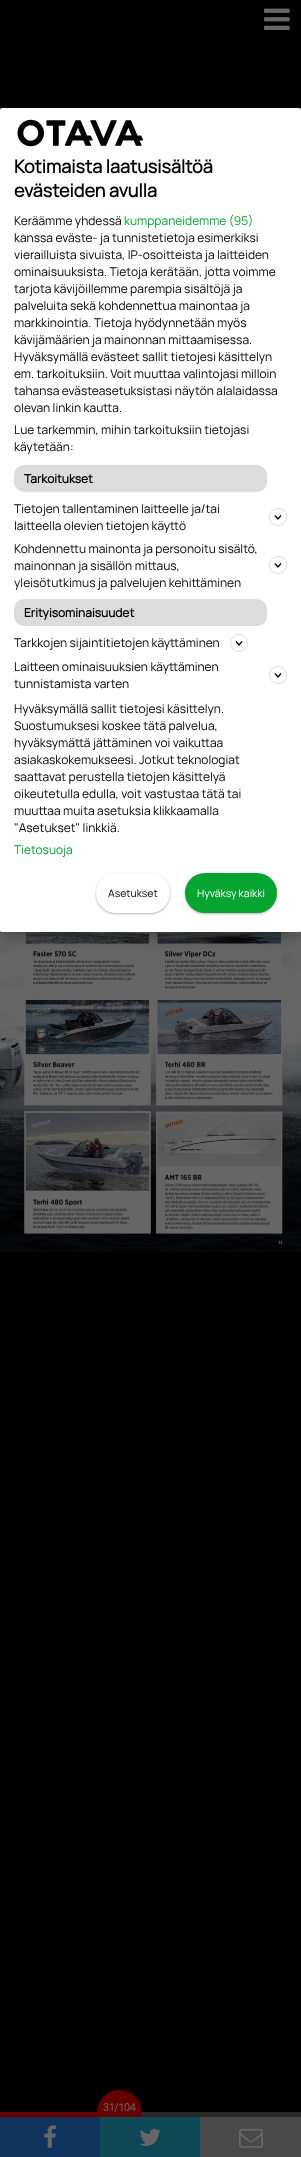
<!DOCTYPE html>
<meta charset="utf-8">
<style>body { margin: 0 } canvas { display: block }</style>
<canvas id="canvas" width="301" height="2157"></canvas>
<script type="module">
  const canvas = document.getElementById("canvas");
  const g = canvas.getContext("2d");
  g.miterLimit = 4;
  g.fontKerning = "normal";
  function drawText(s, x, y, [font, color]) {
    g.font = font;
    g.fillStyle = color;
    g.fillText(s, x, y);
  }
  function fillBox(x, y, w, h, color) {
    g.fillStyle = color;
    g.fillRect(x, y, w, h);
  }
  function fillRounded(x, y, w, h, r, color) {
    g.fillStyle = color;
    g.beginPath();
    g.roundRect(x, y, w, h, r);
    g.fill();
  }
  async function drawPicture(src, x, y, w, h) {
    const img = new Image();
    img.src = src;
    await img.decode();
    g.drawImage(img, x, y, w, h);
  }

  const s1 = ["bold 18px Manrope", "#000000"];
  const s2 = ["200 12px Manrope", "#000000"];
  const s3 = ["200 12px Manrope", "#05A330"];
  const s4 = ["bold 12px Manrope", "#000000"];
  const s5 = ["200 10.5px Manrope", "#000000"];
  const s6 = ["200 10.5px Manrope", "#FFFFFF"];
  const s7 = ["11px Roboto", "#666666"];

  fillBox(0, 0, 301, 2157, "#000000");
  await drawPicture("pic3.png", 0, 930, 301, 322);
  g.fillStyle = "rgba(0, 0, 0, 0.5)";
  g.filter = "blur(10px)";
  g.beginPath();
  g.roundRect(0, 108, 301, 824, 2);
  g.fill();
  g.filter = "none";
  fillRounded(0, 108, 301, 824, 2, "#FFFFFF");
  await drawPicture("pic1.png", 17, 119, 127, 28);
  drawText("Kotimaista laatusisältöä", 14, 173, s1);
  drawText("evästeiden avulla", 14, 197, s1);
  drawText("Keräämme yhdessä", 14, 225, s2);
  drawText("kumppaneidemme (95)", 124, 225, s3);
  drawText("kanssa eväste- ja tunnistetietoja esimerkiksi", 14, 242, s2);
  drawText("vierailluista sivuista, IP-osoitteista ja laitteiden", 14, 259, s2);
  drawText("ominaisuuksista. Tietoja kerätään, jotta voimme", 14, 276, s2);
  drawText("tarjota kävijöillemme parempia sisältöjä ja", 14, 293, s2);
  drawText("palveluita sekä kohdennettua mainontaa ja", 14, 310, s2);
  drawText("markkinointia. Tietoja hyödynnetään myös", 14, 327, s2);
  drawText("kävijämäärien ja mainonnan mittaamisessa.", 14, 344, s2);
  drawText("Hyväksymällä evästeet sallit tietojesi käsittelyn", 14, 361, s2);
  drawText("em. tarkoituksiin. Voit muuttaa valintojasi milloin", 14, 378, s2);
  drawText("tahansa evästeasetuksistasi näytön alalaidassa", 14, 395, s2);
  drawText("olevan linkin kautta.", 14, 412, s2);
  drawText("Lue tarkemmin, mihin tarkoituksiin tietojasi", 14, 434, s2);
  drawText("käytetään:", 14, 451, s2);
  fillRounded(14, 465, 253, 27, 10, "#DCDCDC");
  drawText("Tarkoitukset", 24, 483, s4);
  drawText("Tietojen tallentaminen laitteelle ja/tai", 14, 513, s2);
  g.beginPath();
  g.moveTo(275, 515.5);
  g.lineTo(278, 519);
  g.lineTo(281, 515.5);
  g.strokeStyle = "#000000";
  g.lineWidth = 1.3;
  g.stroke();
  g.beginPath();
  g.arc(278, 517, 8.5, 0, Math.PI * 2);
  g.strokeStyle = "#C4C4C4";
  g.lineWidth = 0.6;
  g.stroke();
  drawText("laitteella olevien tietojen käyttö", 14, 530, s2);
  drawText("Kohdennettu mainonta ja personoitu sisältö,", 14, 553, s2);
  drawText("mainonnan ja sisällön mittaus,", 14, 570, s2);
  g.beginPath();
  g.moveTo(275, 563.5);
  g.lineTo(278, 567);
  g.lineTo(281, 563.5);
  g.strokeStyle = "#000000";
  g.lineWidth = 1.3;
  g.stroke();
  g.beginPath();
  g.arc(278, 565, 8.5, 0, Math.PI * 2);
  g.strokeStyle = "#C4C4C4";
  g.lineWidth = 0.6;
  g.stroke();
  drawText("yleisötutkimus ja palvelujen kehittäminen", 14, 587, s2);
  fillRounded(14, 599, 253, 27, 10, "#DCDCDC");
  drawText("Erityisominaisuudet", 24, 617, s4);
  drawText("Tarkkojen sijaintitietojen käyttäminen", 14, 647, s2);
  g.beginPath();
  g.moveTo(236, 641.5);
  g.lineTo(239, 645);
  g.lineTo(242, 641.5);
  g.strokeStyle = "#000000";
  g.lineWidth = 1.3;
  g.stroke();
  g.beginPath();
  g.arc(239, 643, 8.5, 0, Math.PI * 2);
  g.strokeStyle = "#C4C4C4";
  g.lineWidth = 0.6;
  g.stroke();
  drawText("Laitteen ominaisuuksien käyttäminen", 14, 671, s2);
  g.beginPath();
  g.moveTo(275, 673.5);
  g.lineTo(278, 677);
  g.lineTo(281, 673.5);
  g.strokeStyle = "#000000";
  g.lineWidth = 1.3;
  g.stroke();
  g.beginPath();
  g.arc(278, 675, 8.5, 0, Math.PI * 2);
  g.strokeStyle = "#C4C4C4";
  g.lineWidth = 0.6;
  g.stroke();
  drawText("tunnistamista varten", 14, 688, s2);
  drawText("Hyväksymällä sallit tietojesi käsittelyn.", 14, 713, s2);
  drawText("Suostumuksesi koskee tätä palvelua,", 14, 730, s2);
  drawText("hyväksymättä jättäminen voi vaikuttaa", 14, 747, s2);
  drawText("asiakaskokemukseesi. Jotkut teknologiat", 14, 764, s2);
  drawText("saattavat perustella tietojen käsittelyä", 14, 781, s2);
  drawText("oikeutetulla edulla, voit vastustaa tätä tai", 14, 798, s2);
  drawText("muuttaa muita asetuksia klikkaamalla", 14, 815, s2);
  drawText("\"Asetukset\" linkkiä.", 14, 832, s2);
  drawText("Tietosuoja", 14, 854, s3);
  g.fillStyle = "#FFFFFF";
  g.beginPath();
  g.roundRect(0, 858, 301, 74, [0, 0, 2, 2]);
  g.fill();
  g.fillStyle = "rgba(0, 0, 0, 0.3)";
  g.filter = "blur(1px)";
  g.beginPath();
  g.roundRect(96, 874, 74, 40, 20);
  g.fill();
  g.filter = "none";
  fillRounded(96, 873, 74, 40, 20, "#FFFFFF");
  drawText("Asetukset", 108, 897, s5);
  g.fillStyle = "rgba(0, 0, 0, 0.3)";
  g.filter = "blur(1px)";
  g.beginPath();
  g.roundRect(185, 874, 92, 40, 20);
  g.fill();
  g.filter = "none";
  fillRounded(185, 873, 92, 40, 20, "#05A330");
  drawText("Hyväksy kaikki", 197, 897, s6);
  await drawPicture("pic2.png", 264, 8, 26, 22);
  fillBox(142, 2112, 159, 5, "#292929");
  fillBox(0, 2112, 142, 5, "#660000");
  g.beginPath();
  g.arc(119.5, 2112.5, 22.5, 0, Math.PI * 2);
  g.fill();
  g.letterSpacing = "-0.5px";
  drawText("31/104", 103, 2111, s7);
  fillBox(0, 2117, 100, 40, "#0F335C");
  await drawPicture("pic4.png", 44, 2125, 12, 23);
  fillBox(100, 2117, 100, 40, "#0E4857");
  await drawPicture("pic5.png", 139, 2128, 22, 18);
  fillBox(200, 2117, 101, 40, "#494949");
  await drawPicture("pic6.png", 239, 2128, 24, 20);
</script>
